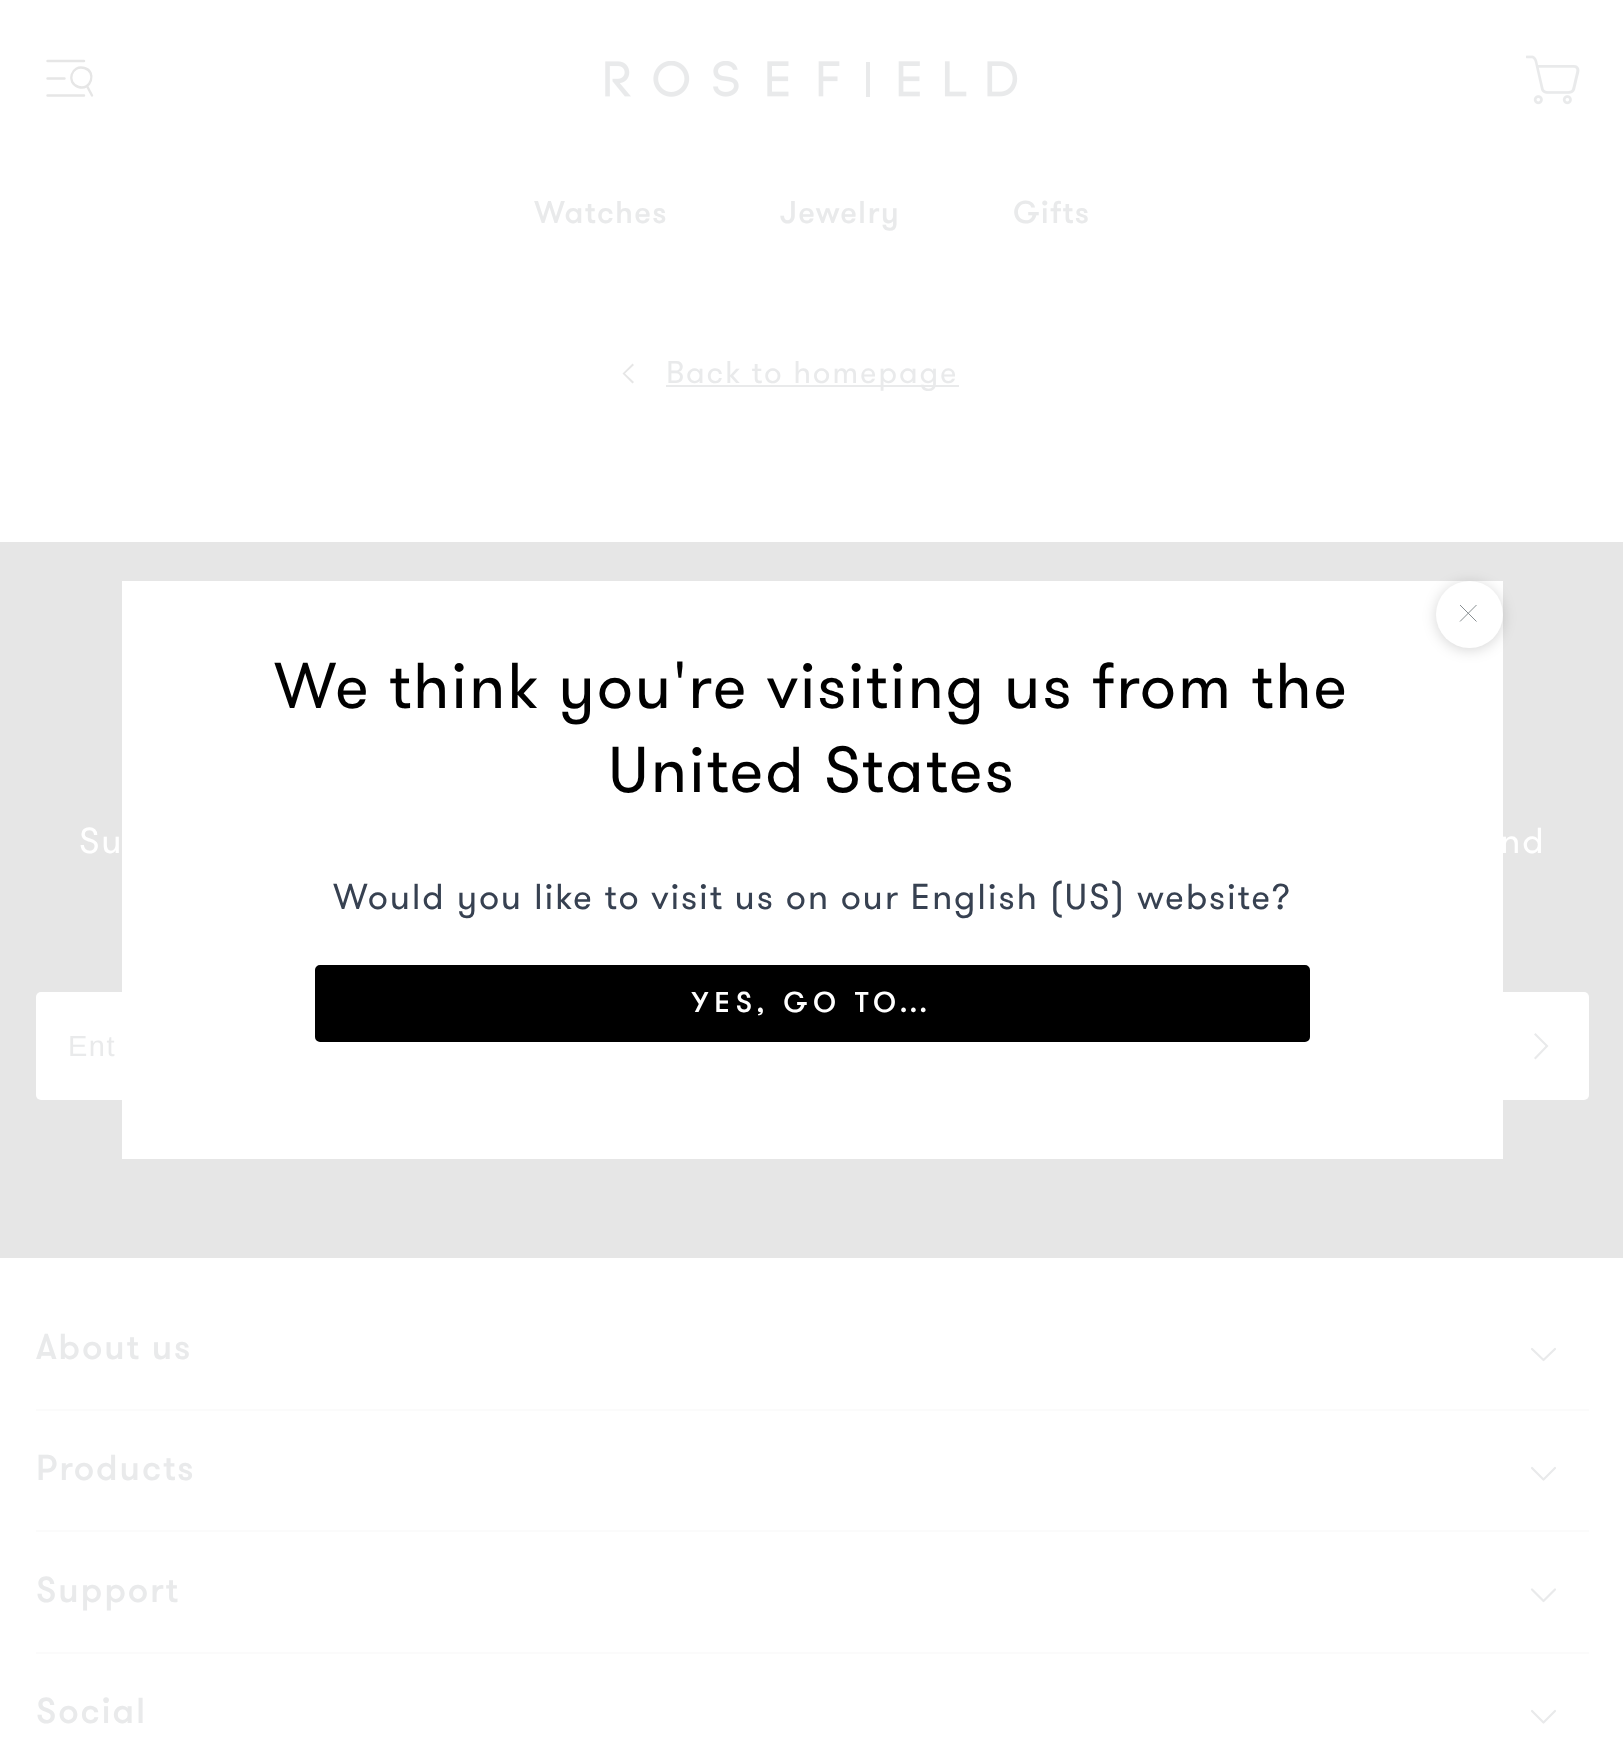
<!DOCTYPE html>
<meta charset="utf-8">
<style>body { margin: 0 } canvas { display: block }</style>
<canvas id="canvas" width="1623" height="1738"></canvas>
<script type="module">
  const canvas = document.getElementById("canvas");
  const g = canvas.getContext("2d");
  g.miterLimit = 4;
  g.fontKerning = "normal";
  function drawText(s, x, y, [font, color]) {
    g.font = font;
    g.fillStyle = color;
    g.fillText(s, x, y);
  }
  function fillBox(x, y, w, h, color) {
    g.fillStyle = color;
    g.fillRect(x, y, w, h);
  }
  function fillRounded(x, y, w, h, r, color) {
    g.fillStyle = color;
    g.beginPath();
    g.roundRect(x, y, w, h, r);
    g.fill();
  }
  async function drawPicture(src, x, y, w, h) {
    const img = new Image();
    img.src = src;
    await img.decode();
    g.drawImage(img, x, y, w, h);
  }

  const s1 = ["500 31.5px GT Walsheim", "#E9EAEB"];
  const s2 = ["31.5px GT Walsheim", "#E9EAEB"];
  const s3 = ["64.75px GT Walsheim", "#000000"];
  const s4 = ["36px GT Walsheim", "#374151"];
  const s5 = ["500 28.75px GT Walsheim", "#FFFFFF"];
  const s6 = ["36px GT Walsheim", "#FFFFFF"];
  const s7 = ["29px Liberation Sans", "#E9EAEB"];
  const s8 = ["500 36px GT Walsheim", "#E9EAEB"];

  fillBox(0, 0, 1623, 1738, "#FFFFFF");
  g.beginPath();
  g.moveTo(47.5, 61);
  g.lineTo(84, 61);
  g.moveTo(47.5, 78.5);
  g.lineTo(64.5, 78.5);
  g.moveTo(47.5, 95.5);
  g.lineTo(84, 95.5);
  g.moveTo(87, 86);
  g.lineTo(92, 95.5);
  g.strokeStyle = "#E6E6E6";
  g.lineWidth = 2.4;
  g.lineCap = "round";
  g.stroke();
  g.beginPath();
  g.moveTo(84.5, 68);
  g.bezierCurveTo(97, 71.5, 91, 91, 78.5, 87);
  g.bezierCurveTo(65.5, 83, 71.5, 64, 84.5, 68);
  g.closePath();
  g.lineCap = "butt";
  g.stroke();
  await drawPicture("pic1.png", 605, 61, 413, 36);
  await drawPicture("pic2.png", 1526, 55, 54, 50);
  g.letterSpacing = "1.25px";
  drawText("Watches", 534, 223, s1);
  drawText("Jewelry", 780, 223, s1);
  drawText("Gifts", 1013, 223, s1);
  g.fillStyle = "#E6E6E6";
  g.beginPath();
  g.moveTo(632.5, 363.5);
  g.lineTo(622.5, 373.5);
  g.lineTo(632.5, 383.5);
  g.lineTo(634, 382);
  g.lineTo(625, 373.5);
  g.lineTo(634, 365);
  g.closePath();
  g.fill();
  fillBox(666, 385, 293, 2, "#E9EAEB");
  g.letterSpacing = "1.8px";
  drawText("Back to homepage", 666, 383, s2);
  fillBox(0, 542, 1623, 716, "#E6E6E6");
  fillRounded(36, 992, 1553, 108, 5, "#FFFFFF");
  fillBox(122, 581, 1381, 578, "#FFFFFF");
  g.fillStyle = "rgba(0, 0, 0, 0.16)";
  g.filter = "blur(7px)";
  g.beginPath();
  g.roundRect(1436, 583, 67, 67, 33.5);
  g.fill();
  g.filter = "none";
  g.fillStyle = "#FFFFFF";
  g.beginPath();
  g.arc(1469.5, 614.5, 33.5, 0, Math.PI * 2);
  g.fill();
  g.beginPath();
  g.moveTo(1476.5, 621.5);
  g.lineTo(1460, 605);
  g.moveTo(1476.5, 605);
  g.lineTo(1460, 621.5);
  g.strokeStyle = "#878E91";
  g.lineWidth = 1;
  g.stroke();
  drawText("We think you're visiting us from the", 274, 708, s3);
  drawText("United States", 608, 792, s3);
  drawText("Would you like to visit us on our English (US) website?", 333, 909, s4);
  g.fillStyle = "#000000";
  g.beginPath();
  g.roundRect(316, 966, 993, 75, 4);
  g.fill();
  g.strokeStyle = "#000000";
  g.lineWidth = 2;
  g.stroke();
  g.letterSpacing = "5.75px";
  drawText("YES, GO TO…", 691, 1012, s5);
  g.letterSpacing = "1.8px";
  drawText("Su", 79, 853, s6);
  drawText("nd", 1500, 853, s6);
  g.letterSpacing = "1.5px";
  drawText("Ent", 68, 1056, s7);
  g.beginPath();
  g.moveTo(1535.5, 1033);
  g.lineTo(1534, 1034.5);
  g.lineTo(1545.5, 1046);
  g.lineTo(1534, 1058);
  g.lineTo(1535.5, 1059.5);
  g.lineTo(1548.5, 1046);
  g.lineTo(1548, 1045.5);
  g.closePath();
  g.fill();
  fillBox(36, 1409, 1553, 2, "#FBFBFB");
  g.letterSpacing = "1.8px";
  drawText("About us", 36, 1359, s8);
  g.beginPath();
  g.moveTo(1555, 1349);
  g.lineTo(1543.5, 1360);
  g.lineTo(1532, 1349);
  g.strokeStyle = "#E9EAEB";
  g.lineWidth = 2.2;
  g.lineCap = "round";
  g.lineJoin = "round";
  g.stroke();
  fillBox(36, 1530, 1553, 2, "#FBFBFB");
  drawText("Products", 36, 1480, s8);
  g.beginPath();
  g.moveTo(1555, 1468);
  g.lineTo(1543.5, 1479.5);
  g.lineTo(1532, 1468);
  g.stroke();
  fillBox(36, 1652, 1553, 2, "#FBFBFB");
  drawText("Support", 36, 1602, s8);
  g.beginPath();
  g.moveTo(1555, 1589.5);
  g.lineTo(1543.5, 1601);
  g.lineTo(1532, 1589.5);
  g.stroke();
  drawText("Social", 36, 1723, s8);
  g.beginPath();
  g.moveTo(1555, 1711);
  g.lineTo(1543.5, 1722.5);
  g.lineTo(1532, 1711);
  g.stroke();
</script>
